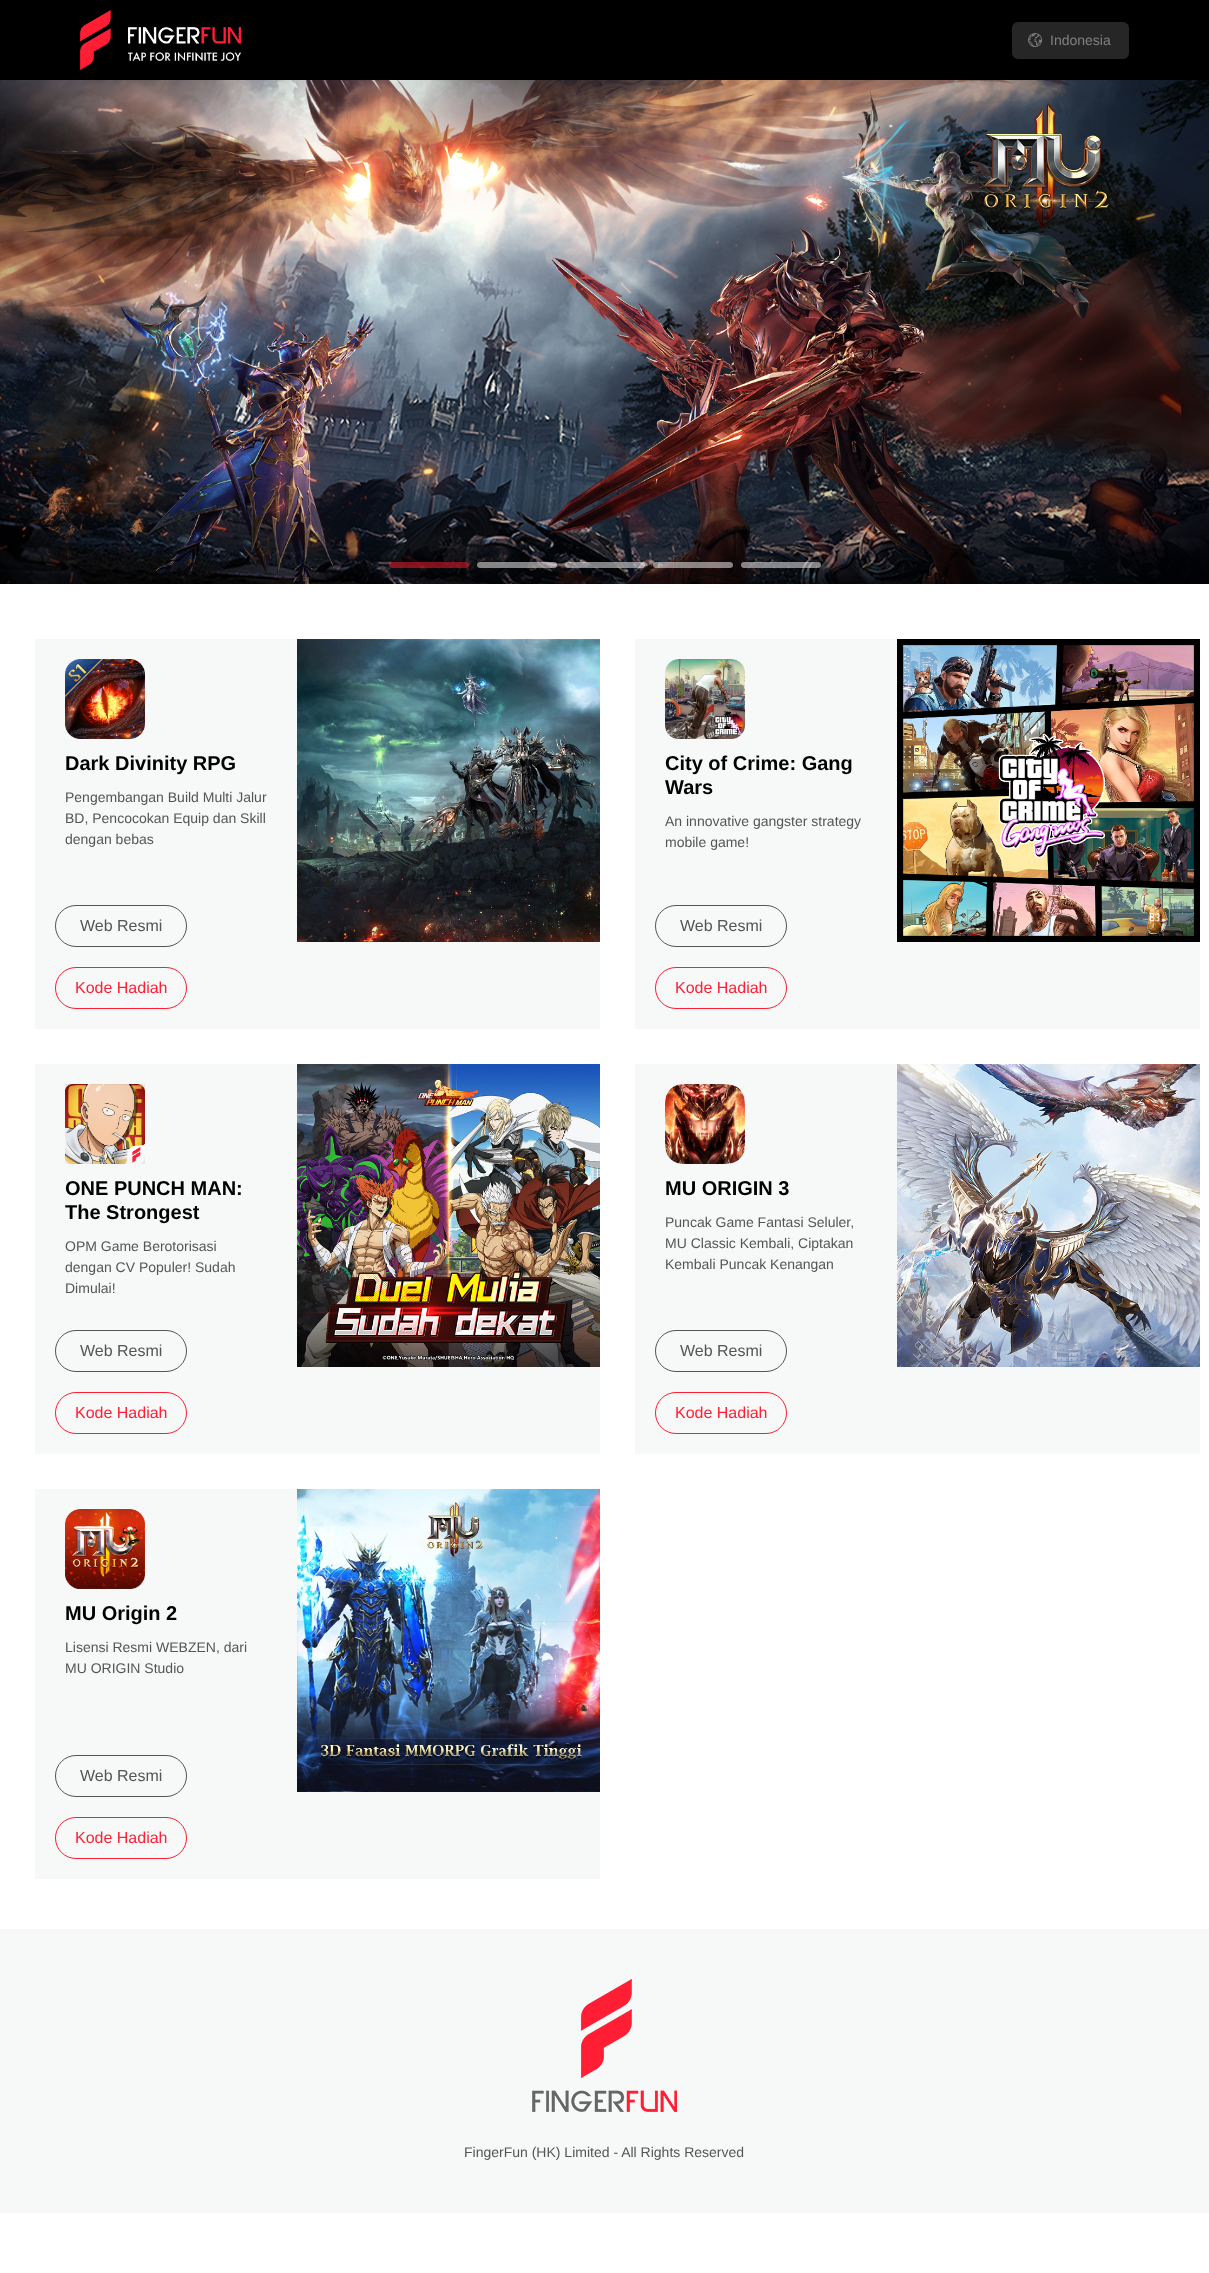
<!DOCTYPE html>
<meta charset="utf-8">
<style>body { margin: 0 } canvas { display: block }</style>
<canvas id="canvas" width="1209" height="2273"></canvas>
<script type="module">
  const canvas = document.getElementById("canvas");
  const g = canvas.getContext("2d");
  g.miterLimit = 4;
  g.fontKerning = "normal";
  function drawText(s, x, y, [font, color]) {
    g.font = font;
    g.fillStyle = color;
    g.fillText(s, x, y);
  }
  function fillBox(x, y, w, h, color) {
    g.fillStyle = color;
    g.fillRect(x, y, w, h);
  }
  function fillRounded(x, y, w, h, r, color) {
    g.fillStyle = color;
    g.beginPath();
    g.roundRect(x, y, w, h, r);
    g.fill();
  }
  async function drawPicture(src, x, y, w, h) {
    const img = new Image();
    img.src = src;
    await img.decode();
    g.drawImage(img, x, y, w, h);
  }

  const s1 = ["14px Liberation Sans", "#808080"];
  const s2 = ["bold 20px Liberation Sans", "#000000"];
  const s3 = ["14px Liberation Sans", "#555555"];
  const s4 = ["16px Liberation Sans", "#555555"];
  const s5 = ["16px Liberation Sans", "#FF1E33"];

  fillBox(0, 0, 1209, 2273, "#FFFFFF");
  fillBox(0, 0, 1209, 80, "#000000");
  await drawPicture("pic1.png", 80, 10, 161, 60);
  fillRounded(1012, 22, 117, 37, 6, "#262626");
  await drawPicture("pic2.png", 1028, 33, 14, 14);
  drawText("Indonesia", 1050, 45, s1);
  await drawPicture("pic3.png", 0, 80, 1209, 504);
  fillRounded(389, 562, 80, 6, 3, "rgba(255, 30, 51, 0.5)");
  fillRounded(477, 562, 80, 6, 3, "rgba(255, 255, 255, 0.5)");
  fillRounded(565, 562, 80, 6, 3, "rgba(255, 255, 255, 0.5)");
  fillRounded(653, 562, 80, 6, 3, "rgba(255, 255, 255, 0.5)");
  fillRounded(741, 562, 80, 6, 3, "rgba(255, 255, 255, 0.5)");
  fillBox(35, 639, 565, 390, "#F7F8F8");
  await drawPicture("pic4.png", 65, 659, 80, 80);
  drawText("Dark Divinity RPG", 65, 770, s2);
  drawText("Pengembangan Build Multi Jalur", 65, 802, s3);
  drawText("BD, Pencocokan Equip dan Skill", 65, 823, s3);
  drawText("dengan bebas", 65, 844, s3);
  g.beginPath();
  g.roundRect(55.5, 905.5, 131, 41, 20.5);
  g.strokeStyle = "#555555";
  g.stroke();
  drawText("Web Resmi", 80, 931, s4);
  g.beginPath();
  g.roundRect(55.5, 967.5, 131, 41, 20.5);
  g.strokeStyle = "#FF1E33";
  g.stroke();
  drawText("Kode Hadiah", 75, 993, s5);
  await drawPicture("pic5.png", 297, 639, 303, 303);
  fillBox(635, 639, 565, 390, "#F7F8F8");
  await drawPicture("pic6.png", 665, 659, 80, 80);
  drawText("City of Crime: Gang", 665, 770, s2);
  drawText("Wars", 665, 794, s2);
  drawText("An innovative gangster strategy", 665, 826, s3);
  drawText("mobile game!", 665, 847, s3);
  g.beginPath();
  g.roundRect(655.5, 905.5, 131, 41, 20.5);
  g.strokeStyle = "#555555";
  g.stroke();
  drawText("Web Resmi", 680, 931, s4);
  g.beginPath();
  g.roundRect(655.5, 967.5, 131, 41, 20.5);
  g.strokeStyle = "#FF1E33";
  g.stroke();
  drawText("Kode Hadiah", 675, 993, s5);
  await drawPicture("pic7.png", 897, 639, 303, 303);
  fillBox(35, 1064, 565, 390, "#F7F8F8");
  await drawPicture("pic8.png", 65, 1084, 80, 80);
  drawText("ONE PUNCH MAN:", 65, 1195, s2);
  drawText("The Strongest", 65, 1219, s2);
  drawText("OPM Game Berotorisasi", 65, 1251, s3);
  drawText("dengan CV Populer! Sudah", 65, 1272, s3);
  drawText("Dimulai!", 65, 1293, s3);
  g.beginPath();
  g.roundRect(55.5, 1330.5, 131, 41, 20.5);
  g.strokeStyle = "#555555";
  g.stroke();
  drawText("Web Resmi", 80, 1356, s4);
  g.beginPath();
  g.roundRect(55.5, 1392.5, 131, 41, 20.5);
  g.strokeStyle = "#FF1E33";
  g.stroke();
  drawText("Kode Hadiah", 75, 1418, s5);
  await drawPicture("pic9.png", 297, 1064, 303, 303);
  fillBox(635, 1064, 565, 390, "#F7F8F8");
  await drawPicture("pic10.png", 665, 1084, 80, 80);
  drawText("MU ORIGIN 3", 665, 1195, s2);
  drawText("Puncak Game Fantasi Seluler,", 665, 1227, s3);
  drawText("MU Classic Kembali, Ciptakan", 665, 1248, s3);
  drawText("Kembali Puncak Kenangan", 665, 1269, s3);
  g.beginPath();
  g.roundRect(655.5, 1330.5, 131, 41, 20.5);
  g.strokeStyle = "#555555";
  g.stroke();
  drawText("Web Resmi", 680, 1356, s4);
  g.beginPath();
  g.roundRect(655.5, 1392.5, 131, 41, 20.5);
  g.strokeStyle = "#FF1E33";
  g.stroke();
  drawText("Kode Hadiah", 675, 1418, s5);
  await drawPicture("pic11.png", 897, 1064, 303, 303);
  fillBox(35, 1489, 565, 390, "#F7F8F8");
  await drawPicture("pic12.png", 65, 1509, 80, 80);
  drawText("MU Origin 2", 65, 1620, s2);
  drawText("Lisensi Resmi WEBZEN, dari", 65, 1652, s3);
  drawText("MU ORIGIN Studio", 65, 1673, s3);
  g.beginPath();
  g.roundRect(55.5, 1755.5, 131, 41, 20.5);
  g.strokeStyle = "#555555";
  g.stroke();
  drawText("Web Resmi", 80, 1781, s4);
  g.beginPath();
  g.roundRect(55.5, 1817.5, 131, 41, 20.5);
  g.strokeStyle = "#FF1E33";
  g.stroke();
  drawText("Kode Hadiah", 75, 1843, s5);
  await drawPicture("pic13.png", 297, 1489, 303, 303);
  fillBox(0, 1929, 1209, 284, "#F7F8F8");
  await drawPicture("pic14.png", 532, 1979, 145, 133);
  drawText("FingerFun (HK) Limited - All Rights Reserved", 464, 2157, s3);
</script>
